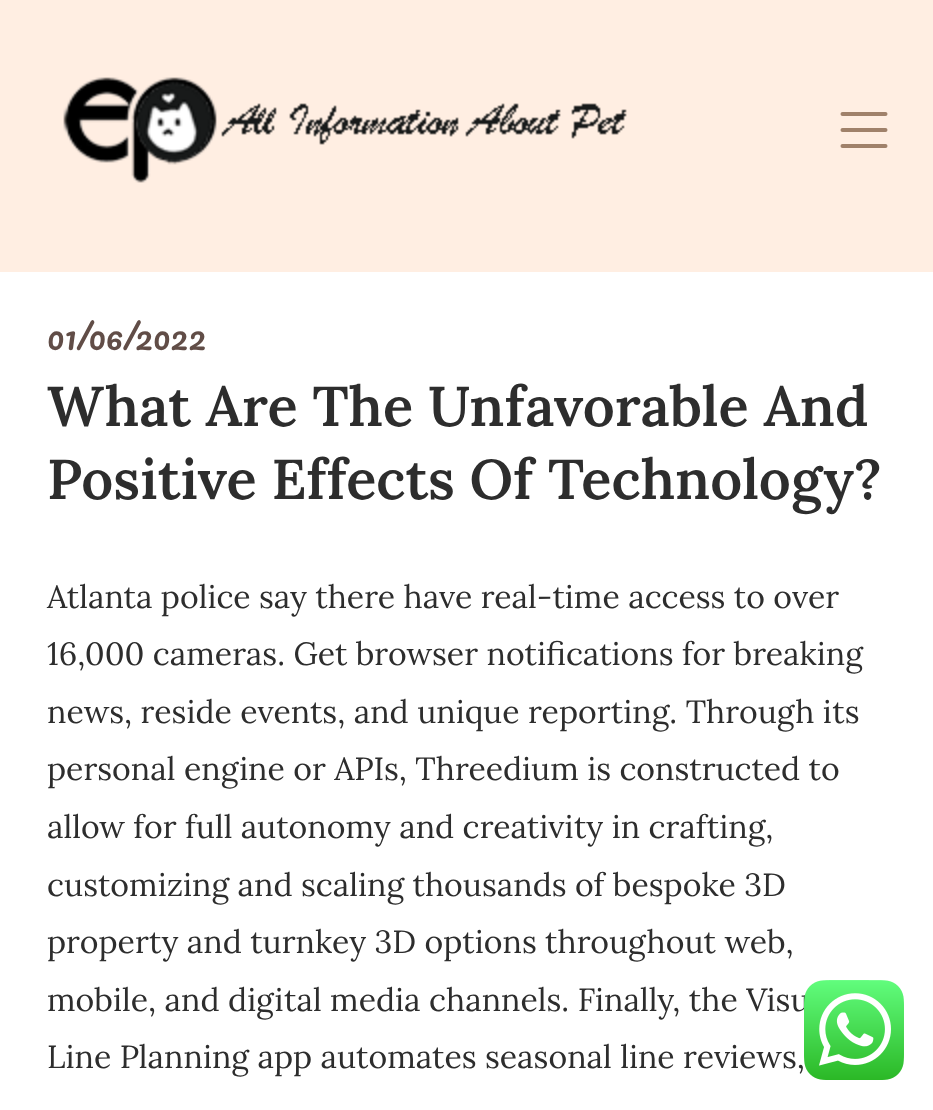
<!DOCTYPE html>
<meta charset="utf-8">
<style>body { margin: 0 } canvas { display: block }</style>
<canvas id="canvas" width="933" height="1110"></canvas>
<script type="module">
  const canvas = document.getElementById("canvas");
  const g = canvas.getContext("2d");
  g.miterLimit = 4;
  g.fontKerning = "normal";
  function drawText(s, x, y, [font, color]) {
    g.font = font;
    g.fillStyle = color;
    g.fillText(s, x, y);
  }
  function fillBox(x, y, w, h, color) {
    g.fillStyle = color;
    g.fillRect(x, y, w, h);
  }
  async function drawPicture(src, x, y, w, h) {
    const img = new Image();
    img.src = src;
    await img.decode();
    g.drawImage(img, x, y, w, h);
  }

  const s1 = ["32px Pacifico", "#614D47"];
  const s2 = ["600 56px Lora", "#2D2D2D"];
  const s3 = ["32px Lora", "#2D2D2D"];

  fillBox(0, 0, 933, 1110, "#FFFFFF");
  fillBox(0, 0, 933, 272, "#FFEEE2");
  await drawPicture("pic1.png", 63, 77, 564, 106);
  g.beginPath();
  g.moveTo(842.5, 114);
  g.lineTo(885.5, 114);
  g.moveTo(842.5, 130);
  g.lineTo(885.5, 130);
  g.moveTo(842.5, 146);
  g.lineTo(885.5, 146);
  g.strokeStyle = "#A0816A";
  g.lineWidth = 4;
  g.lineCap = "round";
  g.lineJoin = "round";
  g.stroke();
  drawText("01/06/2022", 47, 350, s1);
  drawText("What Are The Unfavorable And", 47, 426, s2);
  drawText("Positive Effects Of Technology?", 47, 499, s2);
  drawText("Atlanta police say there have real-time access to over", 47, 608, s3);
  drawText("16,000 cameras. Get browser notifications for breaking", 47, 665, s3);
  drawText("news, reside events, and unique reporting. Through its", 47, 723, s3);
  drawText("personal engine or APIs, Threedium is constructed to", 47, 780, s3);
  drawText("allow for full autonomy and creativity in crafting,", 47, 838, s3);
  drawText("customizing and scaling thousands of bespoke 3D", 47, 896, s3);
  drawText("property and turnkey 3D options throughout web,", 47, 953, s3);
  drawText("mobile, and digital media channels. Finally, the Visu", 47, 1011, s3);
  drawText("Line Planning app automates seasonal line reviews,", 47, 1068, s3);
  await drawPicture("pic2.png", 804, 980, 100, 100);
</script>
